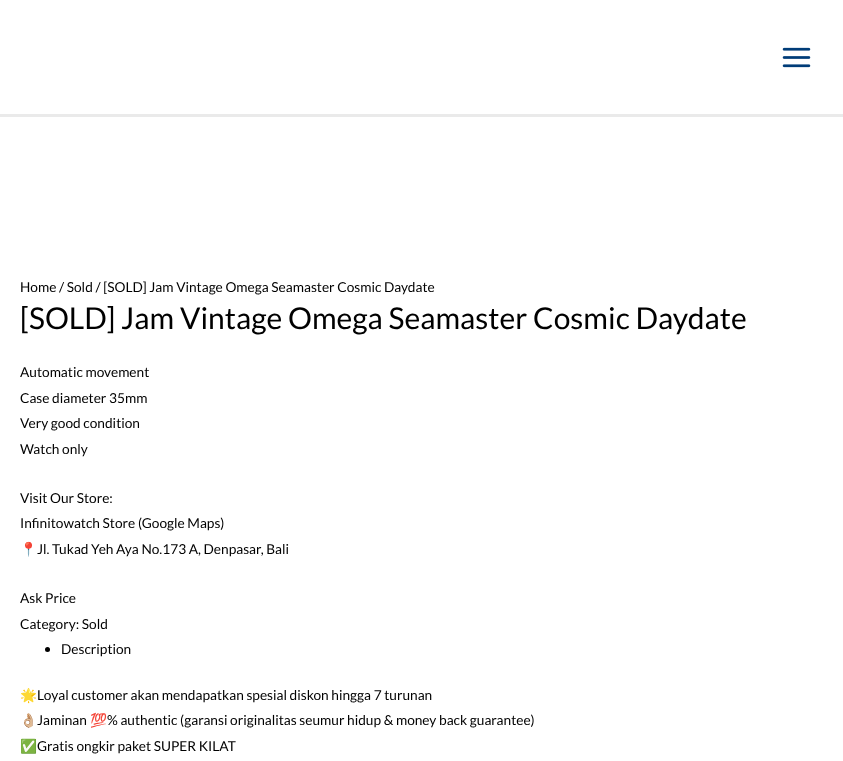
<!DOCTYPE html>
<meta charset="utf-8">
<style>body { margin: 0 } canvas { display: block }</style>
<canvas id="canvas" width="843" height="761"></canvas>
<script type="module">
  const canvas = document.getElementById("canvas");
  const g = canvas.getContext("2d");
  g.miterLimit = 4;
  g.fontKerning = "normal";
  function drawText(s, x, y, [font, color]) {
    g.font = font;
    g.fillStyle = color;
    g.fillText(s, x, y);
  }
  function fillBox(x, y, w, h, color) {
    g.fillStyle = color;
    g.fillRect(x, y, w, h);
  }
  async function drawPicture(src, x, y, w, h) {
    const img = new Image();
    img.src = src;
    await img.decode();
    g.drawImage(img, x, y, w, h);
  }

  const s1 = ["13.7px Lato", "#000000"];
  const s2 = ["30px Lato", "#000000"];
  const s3 = ["13.7px Noto Color Emoji", "#000000"];

  fillBox(0, 0, 843, 761, "#FFFFFF");
  fillBox(0, 114, 843, 3, "#EAEAEA");
  await drawPicture("pic1.png", 782, 47, 29, 21);
  drawText("Home / Sold / [SOLD] Jam Vintage Omega Seamaster Cosmic Daydate", 20, 292, s1);
  drawText("[SOLD] Jam Vintage Omega Seamaster Cosmic Daydate", 20, 329, s2);
  drawText("Automatic movement", 20, 377, s1);
  drawText("Case diameter 35mm", 20, 403, s1);
  drawText("Very good condition", 20, 428, s1);
  drawText("Watch only", 20, 454, s1);
  drawText("Visit Our Store:", 20, 503, s1);
  drawText("Infinitowatch Store (Google Maps)", 20, 528, s1);
  drawText("📍", 20, 554, s3);
  drawText("Jl. Tukad Yeh Aya No.173 A, Denpasar, Bali", 37, 554, s1);
  drawText("Ask Price", 20, 603, s1);
  drawText("Category: Sold", 20, 629, s1);
  g.beginPath();
  g.arc(47.5, 649.5, 2.5, 0, Math.PI * 2);
  g.fill();
  drawText("Description", 61, 654, s1);
  drawText("🌟", 20, 700, s3);
  drawText("Loyal customer akan mendapatkan spesial diskon hingga 7 turunan", 37, 700, s1);
  drawText("👌🏼", 20, 725, s3);
  drawText("Jaminan", 37, 725, s1);
  drawText("💯", 90, 725, s3);
  drawText("% authentic (garansi originalitas seumur hidup & money back guarantee)", 107, 725, s1);
  drawText("✅", 20, 751, s3);
  drawText("Gratis ongkir paket SUPER KILAT", 37, 751, s1);
</script>
